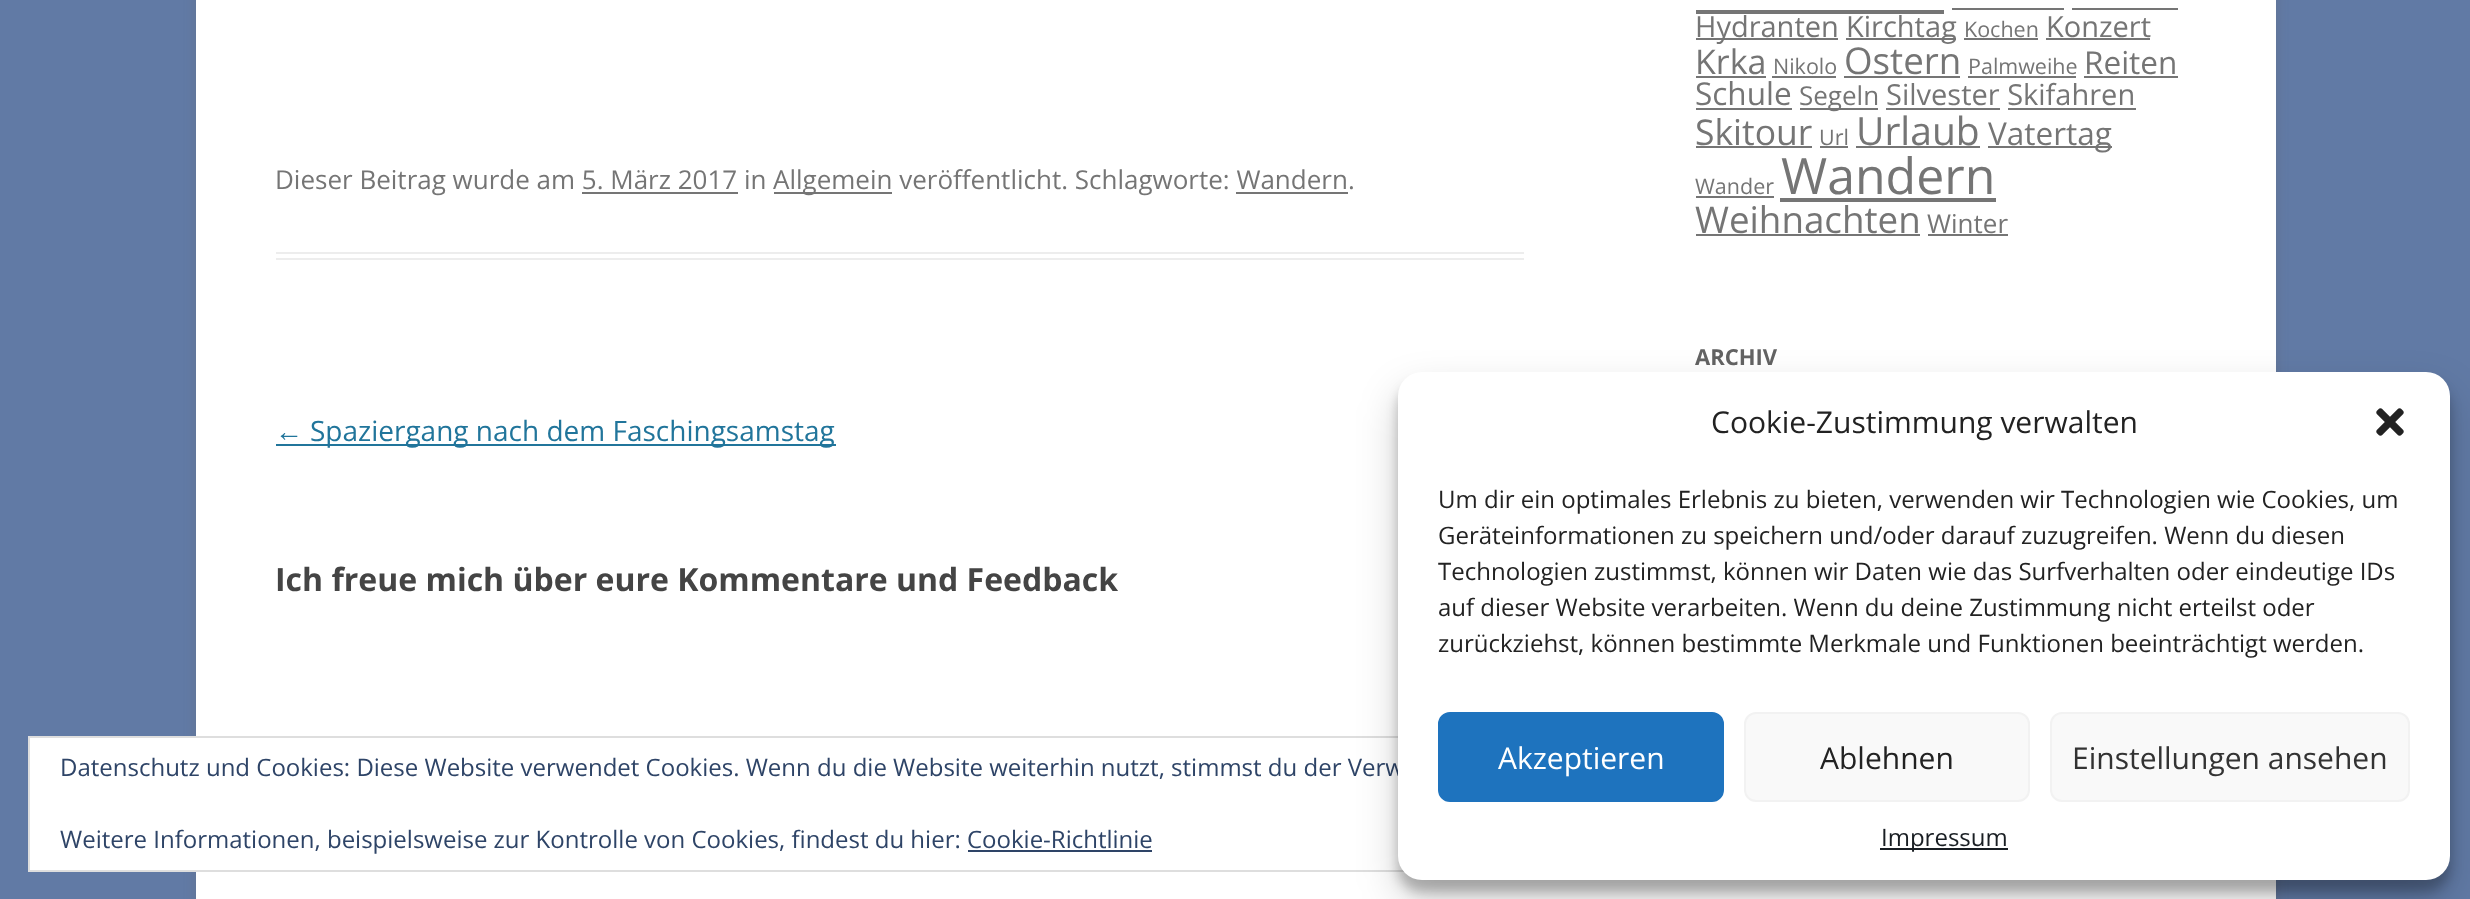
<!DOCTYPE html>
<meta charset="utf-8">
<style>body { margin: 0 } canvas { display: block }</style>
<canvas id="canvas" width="2470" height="899"></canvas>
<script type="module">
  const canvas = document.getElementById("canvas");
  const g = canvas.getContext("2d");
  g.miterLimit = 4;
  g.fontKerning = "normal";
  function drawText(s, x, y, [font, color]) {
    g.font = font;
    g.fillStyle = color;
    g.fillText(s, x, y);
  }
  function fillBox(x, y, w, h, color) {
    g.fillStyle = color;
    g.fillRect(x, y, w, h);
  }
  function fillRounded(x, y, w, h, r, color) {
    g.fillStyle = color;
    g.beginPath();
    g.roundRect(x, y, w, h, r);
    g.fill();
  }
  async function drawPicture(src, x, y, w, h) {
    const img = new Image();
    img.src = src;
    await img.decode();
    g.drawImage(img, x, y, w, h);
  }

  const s1 = ["26px Open Sans", "#757575"];
  const s2 = ["28px Liberation Sans", "#21759B"];
  const s3 = ["28px Open Sans", "#21759B"];
  const s4 = ["bold 32px Open Sans", "#444444"];
  const s5 = ["29px Open Sans", "#757575"];
  const s6 = ["21.5px Open Sans", "#757575"];
  const s7 = ["34px Open Sans", "#757575"];
  const s8 = ["36.75px Open Sans", "#757575"];
  const s9 = ["31.5px Open Sans", "#757575"];
  const s10 = ["35.5px Open Sans", "#757575"];
  const s11 = ["39px Open Sans", "#757575"];
  const s12 = ["50px Open Sans", "#757575"];
  const s13 = ["bold 22px Open Sans", "#636363"];
  const s14 = ["24px Open Sans", "#2E4467"];
  const s15 = ["30px Open Sans", "#222222"];
  const s16 = ["24px Open Sans", "#222222"];
  const s17 = ["30px Open Sans", "#FFFFFF"];
  const s18 = ["30px Open Sans", "#333333"];
  const s19 = ["24px Open Sans", "#191E23"];

  fillBox(0, 0, 2470, 899, "#617AA5");
  g.fillStyle = "rgba(100, 100, 100, 0.3)";
  g.filter = "blur(6px)";
  g.beginPath();
  g.rect(196, -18, 2080, 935);
  g.fill();
  g.filter = "none";
  fillBox(196, 0, 2080, 899, "#FFFFFF");
  fillBox(276, 252, 1248, 2, "#EDEDED");
  fillBox(276, 258, 1248, 2, "#EDEDED");
  drawText("Dieser Beitrag wurde am 5. März 2017 in", 275, 189, s1);
  fillBox(774, 192, 118, 2, "#757575");
  drawText("Allgemein veröffentlicht. Schlagworte: Wandern.", 773, 189, s1);
  fillBox(582, 192, 156, 2, "#757575");
  fillBox(1236, 192, 112, 2, "#757575");
  drawText("←", 275, 441, s2);
  fillBox(276, 444, 560, 2, "#21759B");
  drawText("Spaziergang nach dem Faschingsamstag", 310, 441, s3);
  drawText("Ich freue mich über eure Kommentare und Feedback", 275, 591, s4);
  fillBox(1952, 8, 112, 2, "#757575");
  fillBox(2072, 8, 106, 2, "#757575");
  fillBox(1696, 10, 248, 4, "#757575");
  fillBox(1696, 38, 142, 2, "#757575");
  drawText("Hydranten", 1695, 37, s5);
  fillBox(1846, 38, 110, 2, "#757575");
  drawText("Kirchtag", 1846, 37, s5);
  drawText("Kochen", 1964, 37, s6);
  fillBox(1964, 38, 74, 2, "#757575");
  drawText("Konzert", 2046, 37, s5);
  fillBox(2046, 38, 104, 2, "#757575");
  drawText("Krka", 1695, 74, s7);
  fillBox(1696, 76, 70, 2, "#757575");
  drawText("Nikolo", 1773, 74, s6);
  fillBox(1772, 76, 64, 2, "#757575");
  drawText("Ostern", 1844, 74, s8);
  fillBox(1844, 76, 116, 2, "#757575");
  drawText("Palmweihe", 1968, 74, s6);
  fillBox(1968, 76, 108, 2, "#757575");
  drawText("Reiten", 2084, 74, s9);
  fillBox(2084, 76, 94, 2, "#757575");
  drawText("Schule", 1695, 105, s9);
  fillBox(1696, 108, 96, 2, "#757575");
  fillBox(1800, 108, 78, 2, "#757575");
  drawText("Segeln", 1799, 105, s1);
  drawText("Silvester Skifahren", 1886, 105, s5);
  fillBox(1886, 108, 114, 2, "#757575");
  fillBox(2008, 108, 128, 2, "#757575");
  drawText("Skitour", 1695, 145, s10);
  fillBox(1696, 146, 116, 2, "#757575");
  drawText("Url", 1819, 145, s6);
  fillBox(1820, 146, 28, 2, "#757575");
  drawText("Urlaub", 1856, 145, s11);
  fillBox(1856, 146, 124, 2, "#757575");
  fillBox(1988, 146, 124, 2, "#757575");
  drawText("Vatertag", 1988, 145, s9);
  drawText("Wander", 1695, 194, s6);
  fillBox(1696, 196, 78, 2, "#757575");
  drawText("Wandern", 1781, 194, s12);
  fillBox(1780, 198, 216, 4, "#757575");
  drawText("Weihnachten", 1695, 233, s8);
  fillBox(1696, 234, 224, 2, "#757575");
  drawText("Winter", 1927, 233, s1);
  fillBox(1928, 234, 80, 2, "#757575");
  drawText("ARCHIV", 1695, 365, s13);
  fillBox(30, 738, 166, 132, "#FFFFFF");
  g.strokeStyle = "#DEDEDE";
  g.lineWidth = 2;
  g.strokeRect(29, 737, 2412, 134);
  drawText("Datenschutz und Cookies: Diese Website verwendet Cookies. Wenn du die Website weiterhin nutzt, stimmst du der Verw", 60, 776, s14);
  drawText("Weitere Informationen, beispielsweise zur Kontrolle von Cookies, findest du hier: Cookie-Richtlinie", 60, 848, s14);
  fillBox(968, 850, 184, 2, "#2E4467");
  g.fillStyle = "rgba(0, 0, 0, 0.23)";
  g.filter = "blur(6px)";
  g.beginPath();
  g.roundRect(1398, 384, 1052, 508, 24);
  g.fill();
  g.filter = "none";
  g.fillStyle = "rgba(0, 0, 0, 0.19)";
  g.filter = "blur(20px)";
  g.beginPath();
  g.roundRect(1398, 392, 1052, 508, 24);
  g.fill();
  g.filter = "none";
  fillRounded(1398, 372, 1052, 508, 24, "#FFFFFF");
  drawText("Cookie-Zustimmung verwalten", 1711, 433, s15);
  await drawPicture("pic1.png", 2376, 408, 28, 28);
  drawText("Um dir ein optimales Erlebnis zu bieten, verwenden wir Technologien wie Cookies, um", 1438, 508, s16);
  drawText("Geräteinformationen zu speichern und/oder darauf zuzugreifen. Wenn du diesen", 1438, 544, s16);
  drawText("Technologien zustimmst, können wir Daten wie das Surfverhalten oder eindeutige IDs", 1438, 580, s16);
  drawText("auf dieser Website verarbeiten. Wenn du deine Zustimmung nicht erteilst oder", 1438, 616, s16);
  drawText("zurückziehst, können bestimmte Merkmale und Funktionen beeinträchtigt werden.", 1438, 652, s16);
  g.fillStyle = "#1E73BE";
  g.beginPath();
  g.roundRect(1439, 713, 284, 88, 11);
  g.fill();
  g.strokeStyle = "#1E73BE";
  g.stroke();
  drawText("Akzeptieren", 1498, 769, s17);
  g.fillStyle = "#F9F9F9";
  g.beginPath();
  g.roundRect(1745, 713, 284, 88, 11);
  g.fill();
  g.strokeStyle = "#F2F2F2";
  g.stroke();
  drawText("Ablehnen", 1820, 769, s15);
  g.fillStyle = "#F9F9F9";
  g.beginPath();
  g.roundRect(2051, 713, 358, 88, 11);
  g.fill();
  g.stroke();
  drawText("Einstellungen ansehen", 2072, 769, s18);
  fillBox(1880, 848, 128, 2, "#191E23");
  drawText("Impressum", 1881, 846, s19);
</script>
